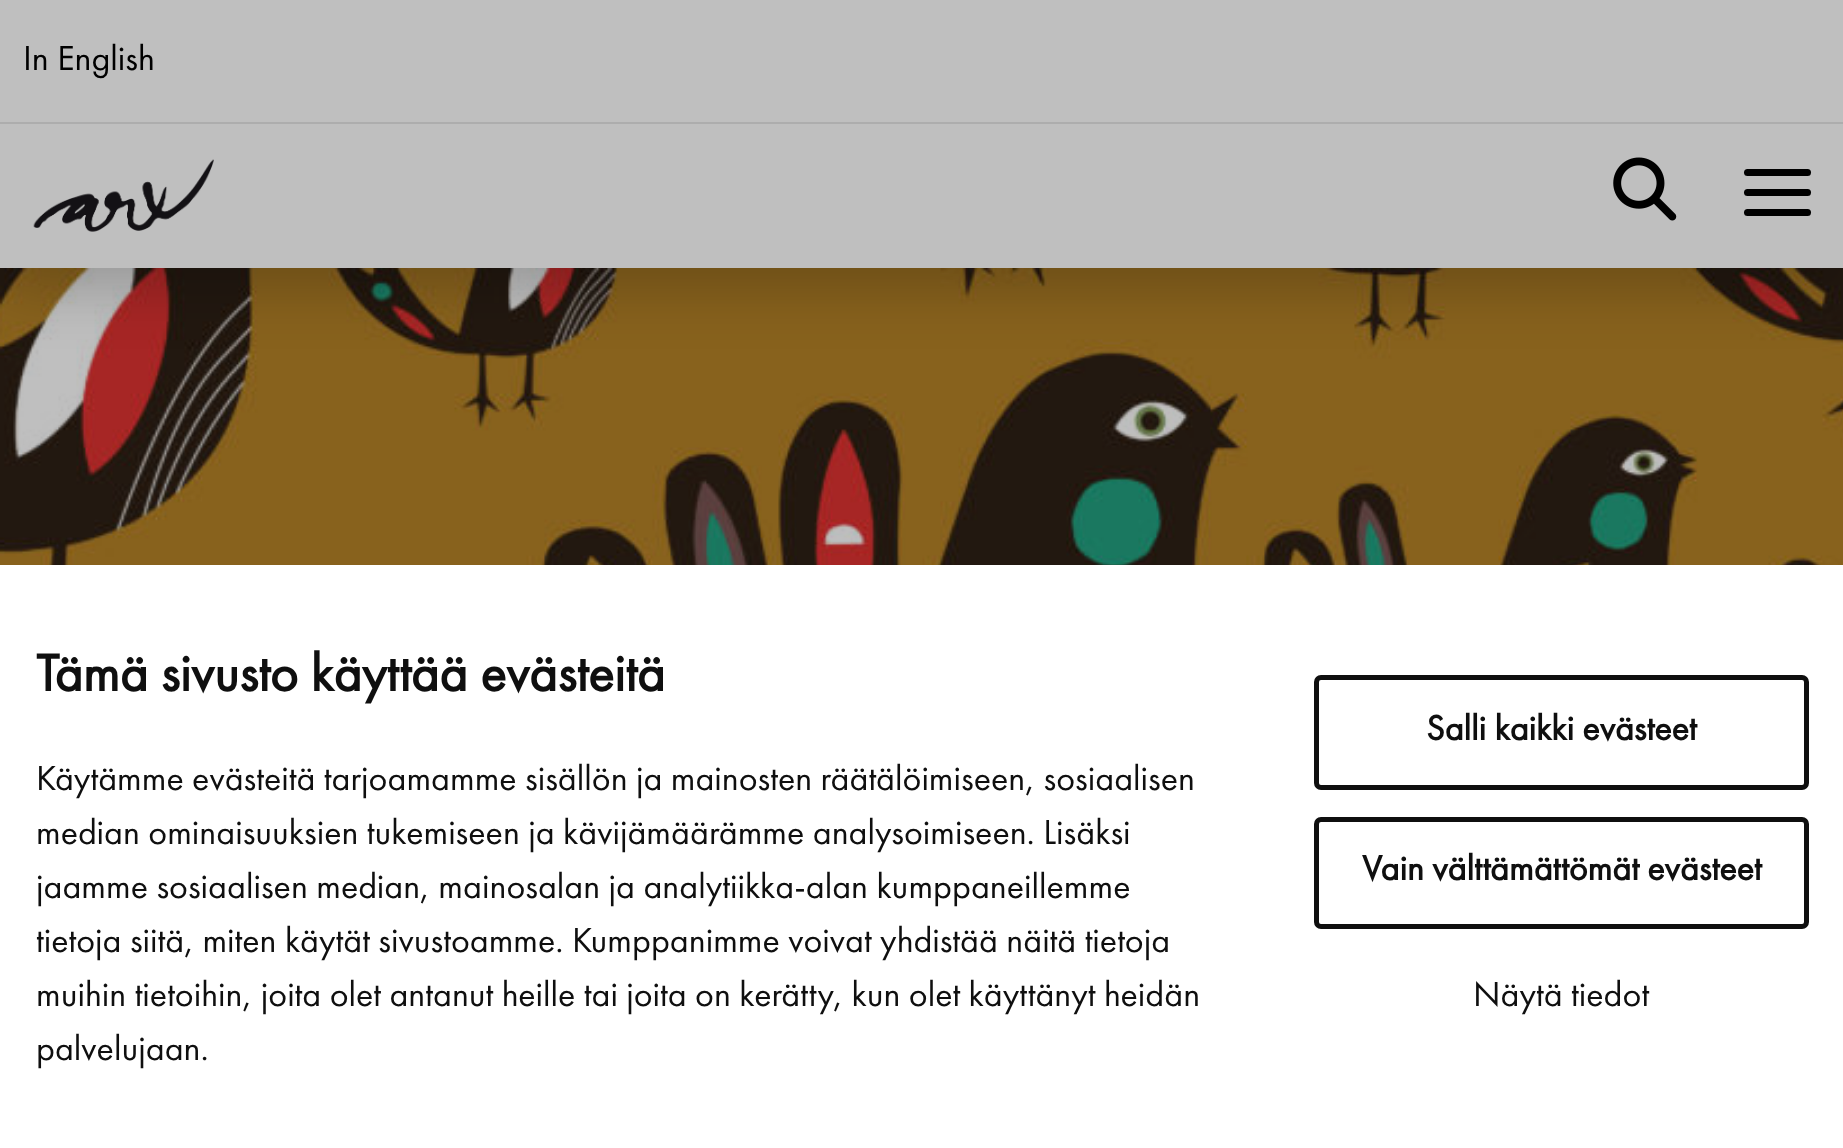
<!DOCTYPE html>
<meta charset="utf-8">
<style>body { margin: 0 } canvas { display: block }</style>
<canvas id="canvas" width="1843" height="1148"></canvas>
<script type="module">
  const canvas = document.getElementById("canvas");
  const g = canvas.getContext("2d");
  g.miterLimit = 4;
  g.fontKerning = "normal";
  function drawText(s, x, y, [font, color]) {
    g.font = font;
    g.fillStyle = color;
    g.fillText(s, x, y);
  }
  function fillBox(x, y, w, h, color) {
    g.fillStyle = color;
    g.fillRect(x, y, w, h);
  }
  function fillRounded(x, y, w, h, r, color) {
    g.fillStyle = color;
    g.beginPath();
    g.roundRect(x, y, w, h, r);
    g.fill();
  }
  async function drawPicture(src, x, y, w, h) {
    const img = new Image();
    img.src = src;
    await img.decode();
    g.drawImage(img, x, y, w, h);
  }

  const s1 = ["36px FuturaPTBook", "#000000"];
  const s2 = ["bold 54px FuturaPTBook", "#0F0F0F"];
  const s3 = ["36px FuturaPTBook", "#0F0F0F"];
  const s4 = ["bold 36px FuturaPTBook", "#0F0F0F"];

  fillBox(0, 0, 1843, 1148, "#FFFFFF");
  await drawPicture("pic3.png", 0, 268, 1843, 297);
  g.fillStyle = "rgba(0, 0, 0, 0.2)";
  g.filter = "blur(28px)";
  g.beginPath();
  g.rect(0, 23, 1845, 267);
  g.fill();
  g.filter = "none";
  fillBox(0, 0, 1843, 268, "#BFBFBF");
  fillBox(0, 122, 1843, 2, "#ADADAD");
  drawText("In English", 23, 70, s1);
  await drawPicture("pic1.png", 33, 159, 181, 73);
  await drawPicture("pic2.png", 1613, 157, 64, 64);
  fillRounded(1744, 189, 67, 7, 3.5, "#000000");
  fillRounded(1744, 169, 67, 7, 3.5, "#000000");
  fillRounded(1744, 209, 67, 7, 3.5, "#000000");
  drawText("Tämä sivusto käyttää evästeitä", 36, 691, s2);
  drawText("Käytämme evästeitä tarjoamamme sisällön ja mainosten räätälöimiseen, sosiaalisen", 36, 790, s3);
  drawText("median ominaisuuksien tukemiseen ja kävijämäärämme analysoimiseen. Lisäksi", 36, 844, s3);
  drawText("jaamme sosiaalisen median, mainosalan ja analytiikka-alan kumppaneillemme", 36, 898, s3);
  drawText("tietoja siitä, miten käytät sivustoamme. Kumppanimme voivat yhdistää näitä tietoja", 36, 952, s3);
  drawText("muihin tietoihin, joita olet antanut heille tai joita on kerätty, kun olet käyttänyt heidän", 36, 1006, s3);
  drawText("palvelujaan.", 36, 1060, s3);
  g.beginPath();
  g.roundRect(1316.5, 677.5, 490, 110, 4.5);
  g.strokeStyle = "#0F0F0F";
  g.lineWidth = 5;
  g.stroke();
  drawText("Salli kaikki evästeet", 1426, 740, s4);
  g.beginPath();
  g.roundRect(1316.5, 819.5, 490, 107, 4.5);
  g.stroke();
  drawText("Vain välttämättömät evästeet", 1362, 880, s4);
  drawText("Näytä tiedot", 1473, 1006, s3);
</script>
